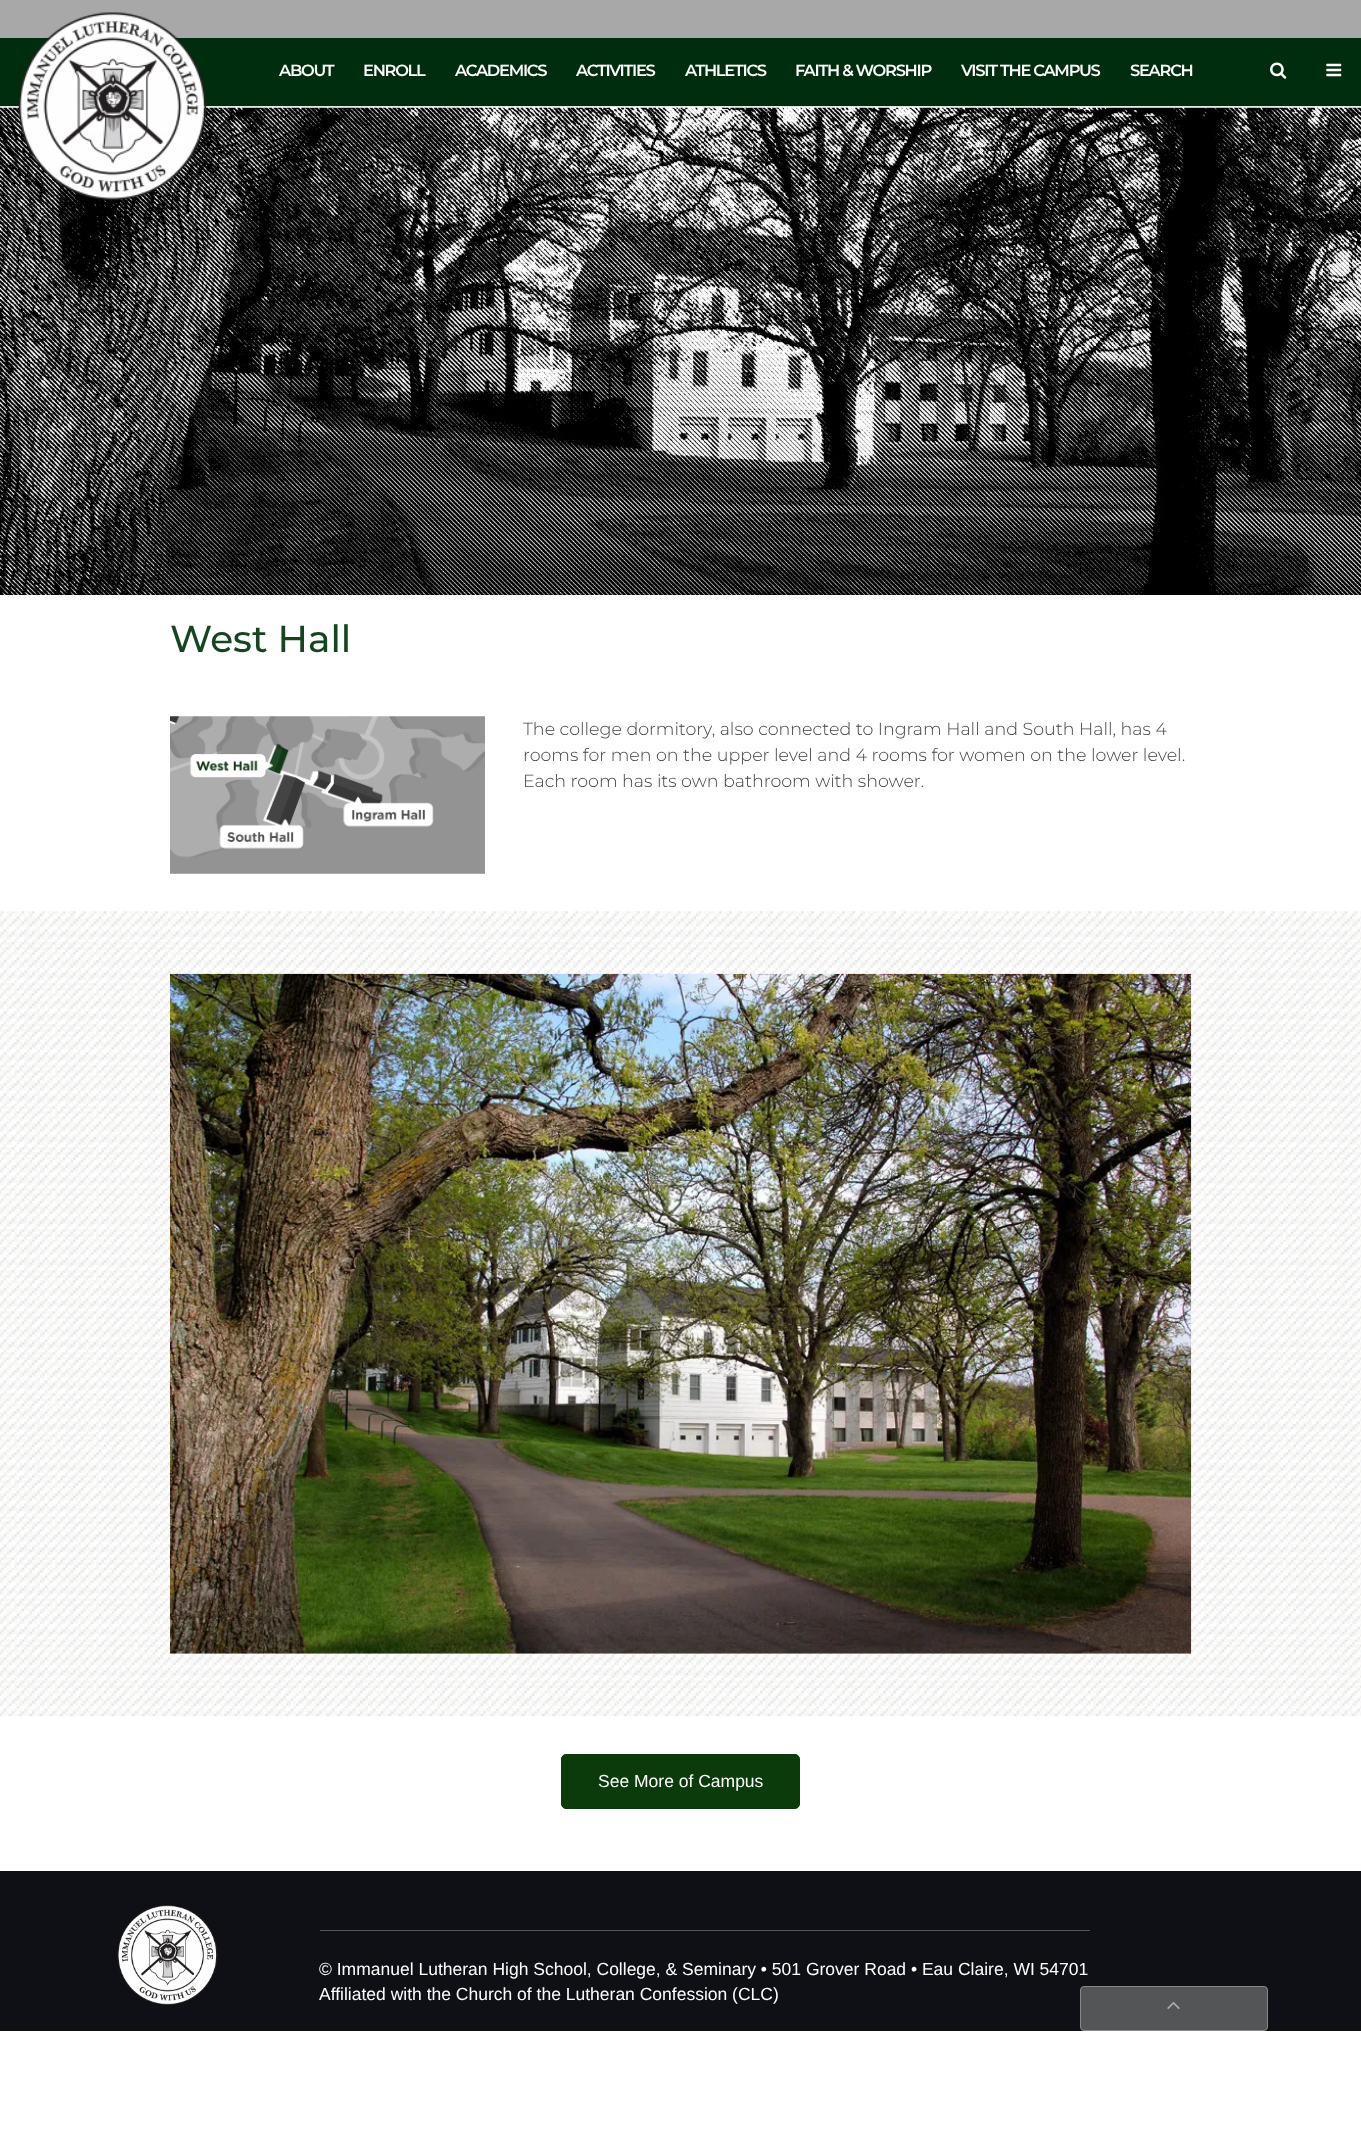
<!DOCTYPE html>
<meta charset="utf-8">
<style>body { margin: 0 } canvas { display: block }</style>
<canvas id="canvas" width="1361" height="2155"></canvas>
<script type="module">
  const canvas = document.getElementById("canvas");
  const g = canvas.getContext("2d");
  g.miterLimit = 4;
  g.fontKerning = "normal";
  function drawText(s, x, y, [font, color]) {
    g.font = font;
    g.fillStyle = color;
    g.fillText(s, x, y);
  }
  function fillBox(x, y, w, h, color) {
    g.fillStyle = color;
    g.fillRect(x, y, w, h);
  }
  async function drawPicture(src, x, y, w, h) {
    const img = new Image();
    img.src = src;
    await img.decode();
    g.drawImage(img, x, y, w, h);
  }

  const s1 = ["600 16.25px Montserrat", "#FFFFFF"];
  const s2 = ["500 37.5px Montserrat", "#154620"];
  const s3 = ["300 17.5px Montserrat", "#444444"];
  const s4 = ["17.5px Liberation Sans", "#FFFFFF"];

  fillBox(0, 0, 1361, 2155, "#FFFFFF");
  fillBox(0, 0, 1361, 38, "#A8A8A8");
  fillBox(0, 106, 1361, 1, "#E6E6E6");
  fillBox(0, 38, 1361, 68, "#002D0D");
  await drawPicture("pic4.png", 0, 107, 1361, 488);
  await drawPicture("pic1.png", 18, 12, 189, 188);
  g.letterSpacing = "-1.25px";
  drawText("ABOUT", 279, 76, s1);
  drawText("ENROLL", 363, 76, s1);
  drawText("ACADEMICS", 455, 76, s1);
  drawText("ACTIVITIES", 576, 76, s1);
  drawText("ATHLETICS", 685, 76, s1);
  drawText("FAITH & WORSHIP", 795, 76, s1);
  drawText("VISIT THE CAMPUS", 961, 76, s1);
  drawText("SEARCH", 1130, 76, s1);
  await drawPicture("pic2.png", 1270, 62, 17, 17);
  await drawPicture("pic3.png", 1326, 63, 16, 14);
  g.letterSpacing = "0px";
  drawText("West Hall", 170, 652, s2);
  await drawPicture("pic5.png", 170, 716, 315, 158);
  drawText("The college dormitory, also connected to Ingram Hall and South Hall, has 4", 523, 735, s3);
  drawText("rooms for men on the upper level and 4 rooms for women on the lower level.", 523, 761, s3);
  drawText("Each room has its own bathroom with shower.", 523, 787, s3);
  await drawPicture("pic6.png", 0, 911, 1361, 806);
  await drawPicture("pic7.png", 170, 973, 1022, 681);
  g.fillStyle = "#0B3A0B";
  g.beginPath();
  g.roundRect(561.5, 1754.5, 238, 54, 4.5);
  g.fill();
  g.strokeStyle = "#0B3A0B";
  g.stroke();
  drawText("See More of Campus", 598, 1787, s4);
  fillBox(0, 1871, 1361, 160, "#0E1015");
  await drawPicture("pic8.png", 117, 1905, 101, 100);
  fillBox(320, 1930, 770, 1, "#555555");
  drawText("© Immanuel Lutheran High School, College, & Seminary • 501 Grover Road • Eau Claire, WI 54701", 319, 1975, s4);
  drawText("Affiliated with the Church of the Lutheran Confession (CLC)", 319, 2000, s4);
  g.fillStyle = "#545557";
  g.beginPath();
  g.roundRect(1080.5, 1986.5, 187, 44, 3.5);
  g.fill();
  g.strokeStyle = "#87888A";
  g.stroke();
  await drawPicture("pic9.png", 1167, 2001, 13, 8);
</script>
